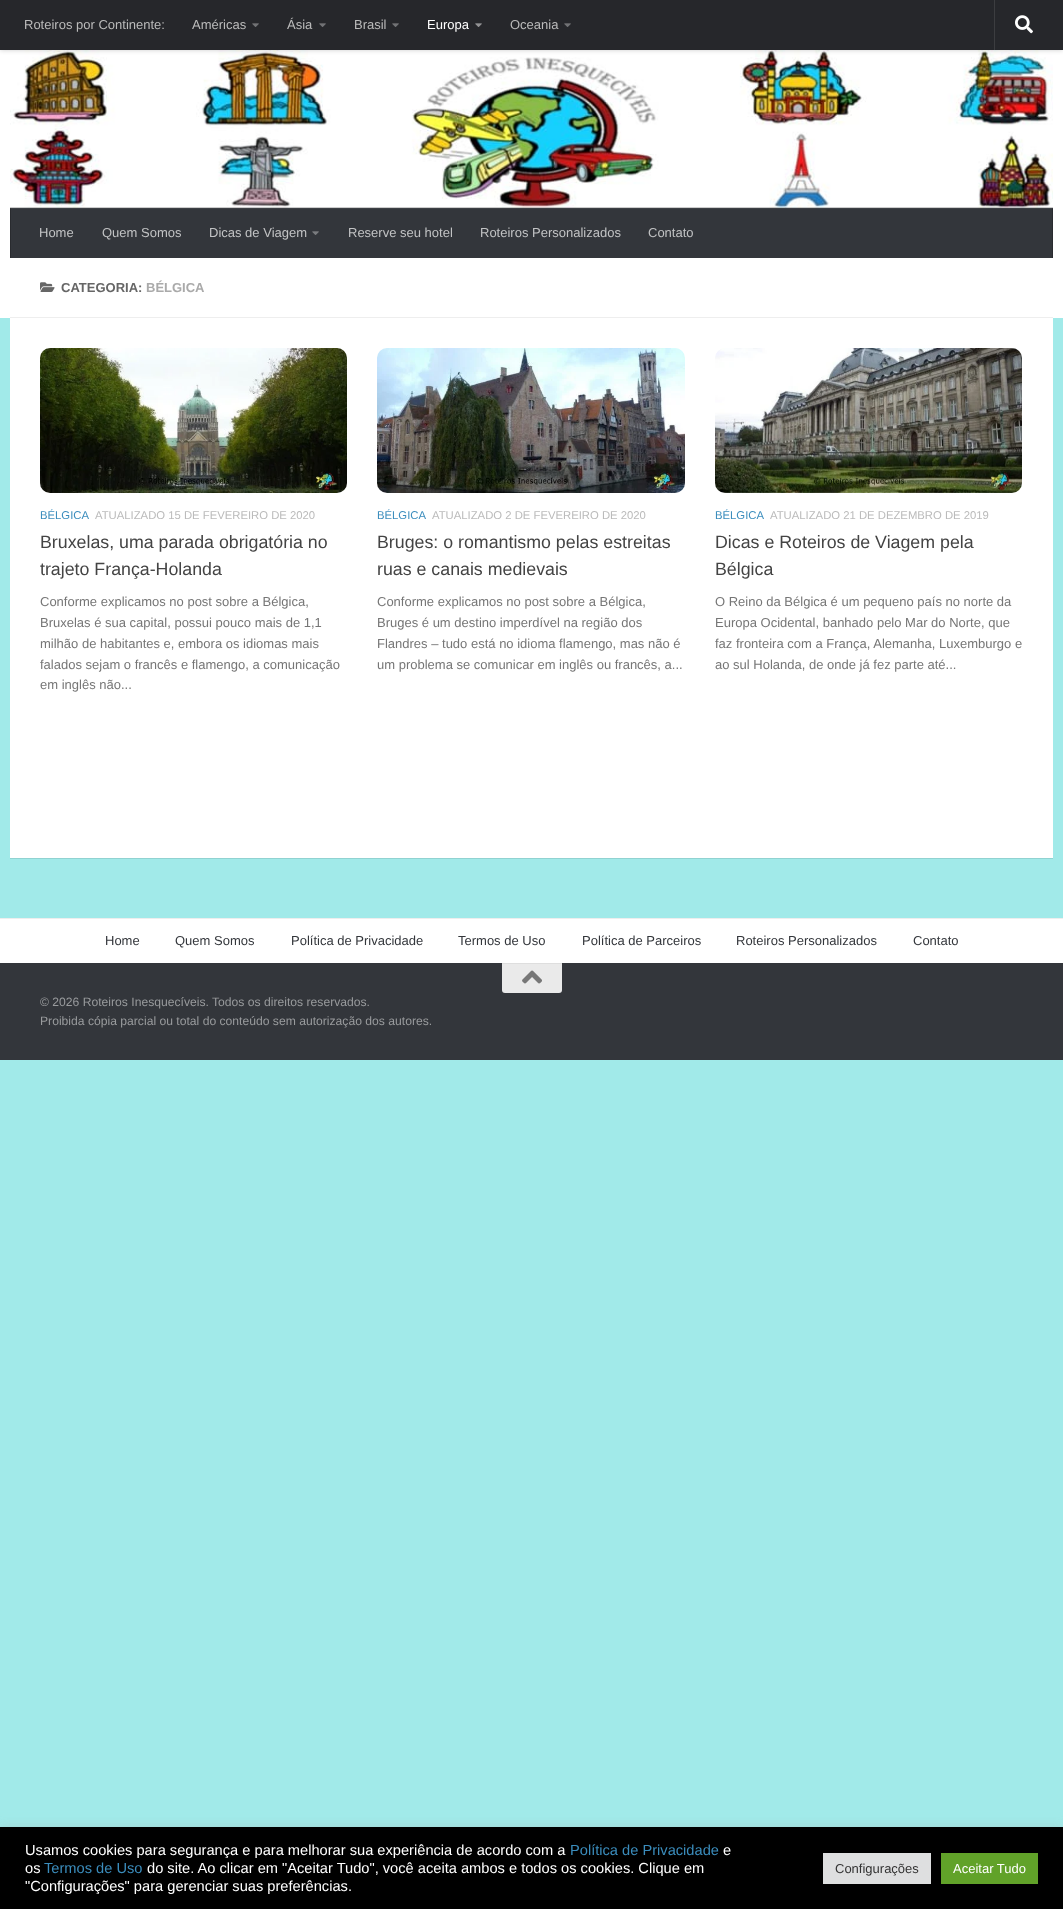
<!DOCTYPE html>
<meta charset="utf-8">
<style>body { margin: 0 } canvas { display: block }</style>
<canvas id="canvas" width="1063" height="1909"></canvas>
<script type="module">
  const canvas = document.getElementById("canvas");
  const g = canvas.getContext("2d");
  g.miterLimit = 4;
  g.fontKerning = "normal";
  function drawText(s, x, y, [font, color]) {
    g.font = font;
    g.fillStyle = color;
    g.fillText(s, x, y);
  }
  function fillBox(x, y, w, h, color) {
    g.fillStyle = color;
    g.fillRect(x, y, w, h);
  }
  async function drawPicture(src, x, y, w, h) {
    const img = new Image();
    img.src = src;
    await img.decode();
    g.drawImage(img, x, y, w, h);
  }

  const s1 = ["13px Liberation Sans", "#BBBBBB"];
  const s2 = ["13px Liberation Sans", "#FFFFFF"];
  const s3 = ["13px Liberation Sans", "#C2C3C4"];
  const s4 = ["bold 13px Liberation Sans", "#666666"];
  const s5 = ["bold 13px Liberation Sans", "#AAAAAA"];
  const s6 = ["11.3px Liberation Sans", "#3B8DBD"];
  const s7 = ["11.3px Liberation Sans", "#BBBBBB"];
  const s8 = ["17.8px Liberation Sans", "#444444"];
  const s9 = ["13px Liberation Sans", "#767676"];
  const s10 = ["13px Liberation Sans", "#33363B"];
  const s11 = ["12.15px Liberation Sans", "#999B9D"];
  const s12 = ["14.65px Liberation Sans", "#FFFFFF"];
  const s13 = ["14.65px Liberation Sans", "#3B8DBD"];
  const s14 = ["13px Liberation Sans", "#333333"];

  fillBox(0, 0, 1063, 1909, "#A1EAE9");
  g.fillStyle = "rgba(0, 0, 0, 0.1)";
  g.filter = "blur(0.5px)";
  g.beginPath();
  g.rect(10, 259, 1043, 600);
  g.fill();
  g.filter = "none";
  fillBox(0, 50, 1063, 268, "#FFFFFF");
  await drawPicture("pic4.png", 10, 50, 1043, 158);
  fillBox(775, 50, 1, 1, "rgba(255, 255, 255, 0.15)");
  g.fillStyle = "rgba(0, 0, 0, 0.2)";
  g.filter = "blur(2.5px)";
  g.beginPath();
  g.rect(0, 0, 1063, 50);
  g.fill();
  g.filter = "none";
  fillBox(0, 0, 1063, 50, "#26272B");
  drawText("Roteiros por Continente:", 24, 29, s1);
  drawText("Américas", 192, 29, s1);
  await drawPicture("pic1.png", 252, 23, 7, 4);
  drawText("Ásia", 287, 29, s1);
  await drawPicture("pic1.png", 319, 23, 7, 4);
  drawText("Brasil", 354, 29, s1);
  await drawPicture("pic1.png", 392, 23, 7, 4);
  drawText("Europa", 427, 29, s2);
  await drawPicture("pic2.png", 475, 23, 7, 4);
  drawText("Oceania", 510, 29, s1);
  await drawPicture("pic1.png", 564, 23, 7, 4);
  fillBox(994, 0, 1, 50, "#3C3D40");
  await drawPicture("pic3.png", 1015, 15, 18, 19);
  fillBox(10, 207, 1043, 1, "rgba(0, 0, 0, 0.2)");
  fillBox(11, 209, 1041, 49, "#33363B");
  fillBox(10, 208, 1043, 1, "#3D4045");
  fillBox(1052, 208, 1, 50, "#292B2F");
  fillBox(1052, 208, 1, 1, "#343639");
  fillBox(10, 208, 1, 50, "#292B2F");
  fillBox(10, 208, 1, 1, "#343639");
  drawText("Home", 39, 237, s3);
  drawText("Quem Somos", 102, 237, s3);
  drawText("Dicas de Viagem", 209, 237, s3);
  await drawPicture("pic5.png", 312, 231, 7, 4);
  drawText("Reserve seu hotel", 348, 237, s3);
  drawText("Roteiros Personalizados", 480, 237, s3);
  drawText("Contato", 648, 237, s3);
  fillBox(10, 318, 1043, 540, "#FFFFFF");
  fillBox(10, 317, 1043, 1, "#EEEEEE");
  await drawPicture("pic6.png", 40, 282, 15, 10);
  drawText("CATEGORIA:", 61, 292, s4);
  drawText("BÉLGICA", 146, 292, s5);
  await drawPicture("pic7.png", 40, 348, 307, 145);
  drawText("BÉLGICA", 40, 519, s6);
  drawText("ATUALIZADO 15 DE FEVEREIRO DE 2020", 95, 519, s7);
  drawText("Bruxelas, uma parada obrigatória no", 40, 548, s8);
  drawText("trajeto França-Holanda", 40, 575, s8);
  drawText("Conforme explicamos no post sobre a Bélgica,", 40, 606, s9);
  drawText("Bruxelas é sua capital, possui pouco mais de 1,1", 40, 627, s9);
  drawText("milhão de habitantes e, embora os idiomas mais", 40, 648, s9);
  drawText("falados sejam o francês e flamengo, a comunicação", 40, 669, s9);
  drawText("em inglês não...", 40, 689, s9);
  await drawPicture("pic8.png", 377, 348, 308, 145);
  drawText("BÉLGICA", 377, 519, s6);
  drawText("ATUALIZADO 2 DE FEVEREIRO DE 2020", 432, 519, s7);
  drawText("Bruges: o romantismo pelas estreitas", 377, 548, s8);
  drawText("ruas e canais medievais", 377, 575, s8);
  drawText("Conforme explicamos no post sobre a Bélgica,", 377, 606, s9);
  drawText("Bruges é um destino imperdível na região dos", 377, 627, s9);
  drawText("Flandres – tudo está no idioma flamengo, mas não é", 377, 648, s9);
  drawText("um problema se comunicar em inglês ou francês, a...", 377, 669, s9);
  await drawPicture("pic9.png", 715, 348, 307, 145);
  drawText("BÉLGICA", 715, 519, s6);
  drawText("ATUALIZADO 21 DE DEZEMBRO DE 2019", 770, 519, s7);
  drawText("Dicas e Roteiros de Viagem pela", 715, 548, s8);
  drawText("Bélgica", 715, 575, s8);
  drawText("O Reino da Bélgica é um pequeno país no norte da", 715, 606, s9);
  drawText("Europa Ocidental, banhado pelo Mar do Norte, que", 715, 627, s9);
  drawText("faz fronteira com a França, Alemanha, Luxemburgo e", 715, 648, s9);
  drawText("ao sul Holanda, de onde já fez parte até...", 715, 669, s9);
  fillBox(0, 919, 1063, 44, "#FFFFFF");
  fillBox(0, 918, 1063, 1, "#EEEEEE");
  drawText("Home", 105, 945, s10);
  drawText("Quem Somos", 175, 945, s10);
  drawText("Política de Privacidade", 291, 945, s10);
  drawText("Termos de Uso", 458, 945, s10);
  drawText("Política de Parceiros", 582, 945, s10);
  drawText("Roteiros Personalizados", 736, 945, s10);
  drawText("Contato", 913, 945, s10);
  fillBox(0, 963, 1063, 97, "#33363B");
  g.fillStyle = "#EAEAEA";
  g.beginPath();
  g.roundRect(502, 963, 60, 30, [0, 0, 3, 3]);
  g.fill();
  fillBox(502, 963, 60, 1, "#DEDEDE");
  await drawPicture("pic10.png", 522, 970, 20, 14);
  drawText("© 2026 Roteiros Inesquecíveis. Todos os direitos reservados.", 40, 1006, s11);
  drawText("Proibida cópia parcial ou total do conteúdo sem autorização dos autores.", 40, 1025, s11);
  g.fillStyle = "rgba(172, 171, 171, 0.3)";
  g.filter = "blur(5px)";
  g.beginPath();
  g.rect(0, 1826, 1063, 82);
  g.fill();
  g.filter = "none";
  fillBox(0, 1827, 1063, 82, "#000000");
  drawText("Usamos cookies para segurança e para melhorar sua experiência de acordo com a", 25, 1855, s12);
  drawText("Política de Privacidade", 570, 1855, s13);
  drawText("e", 723, 1855, s12);
  drawText("os", 25, 1873, s12);
  drawText("Termos de Uso", 44, 1873, s13);
  drawText("do site. Ao clicar em \"Aceitar Tudo\", você aceita ambos e todos os cookies. Clique em", 147, 1873, s12);
  drawText("\"Configurações\" para gerenciar suas preferências.", 25, 1891, s12);
  fillBox(823, 1853, 108, 31, "#DEDFE0");
  drawText("Configurações", 835, 1873, s14);
  fillBox(941, 1853, 97, 31, "#61A229");
  drawText("Aceitar Tudo", 953, 1873, s2);
</script>
